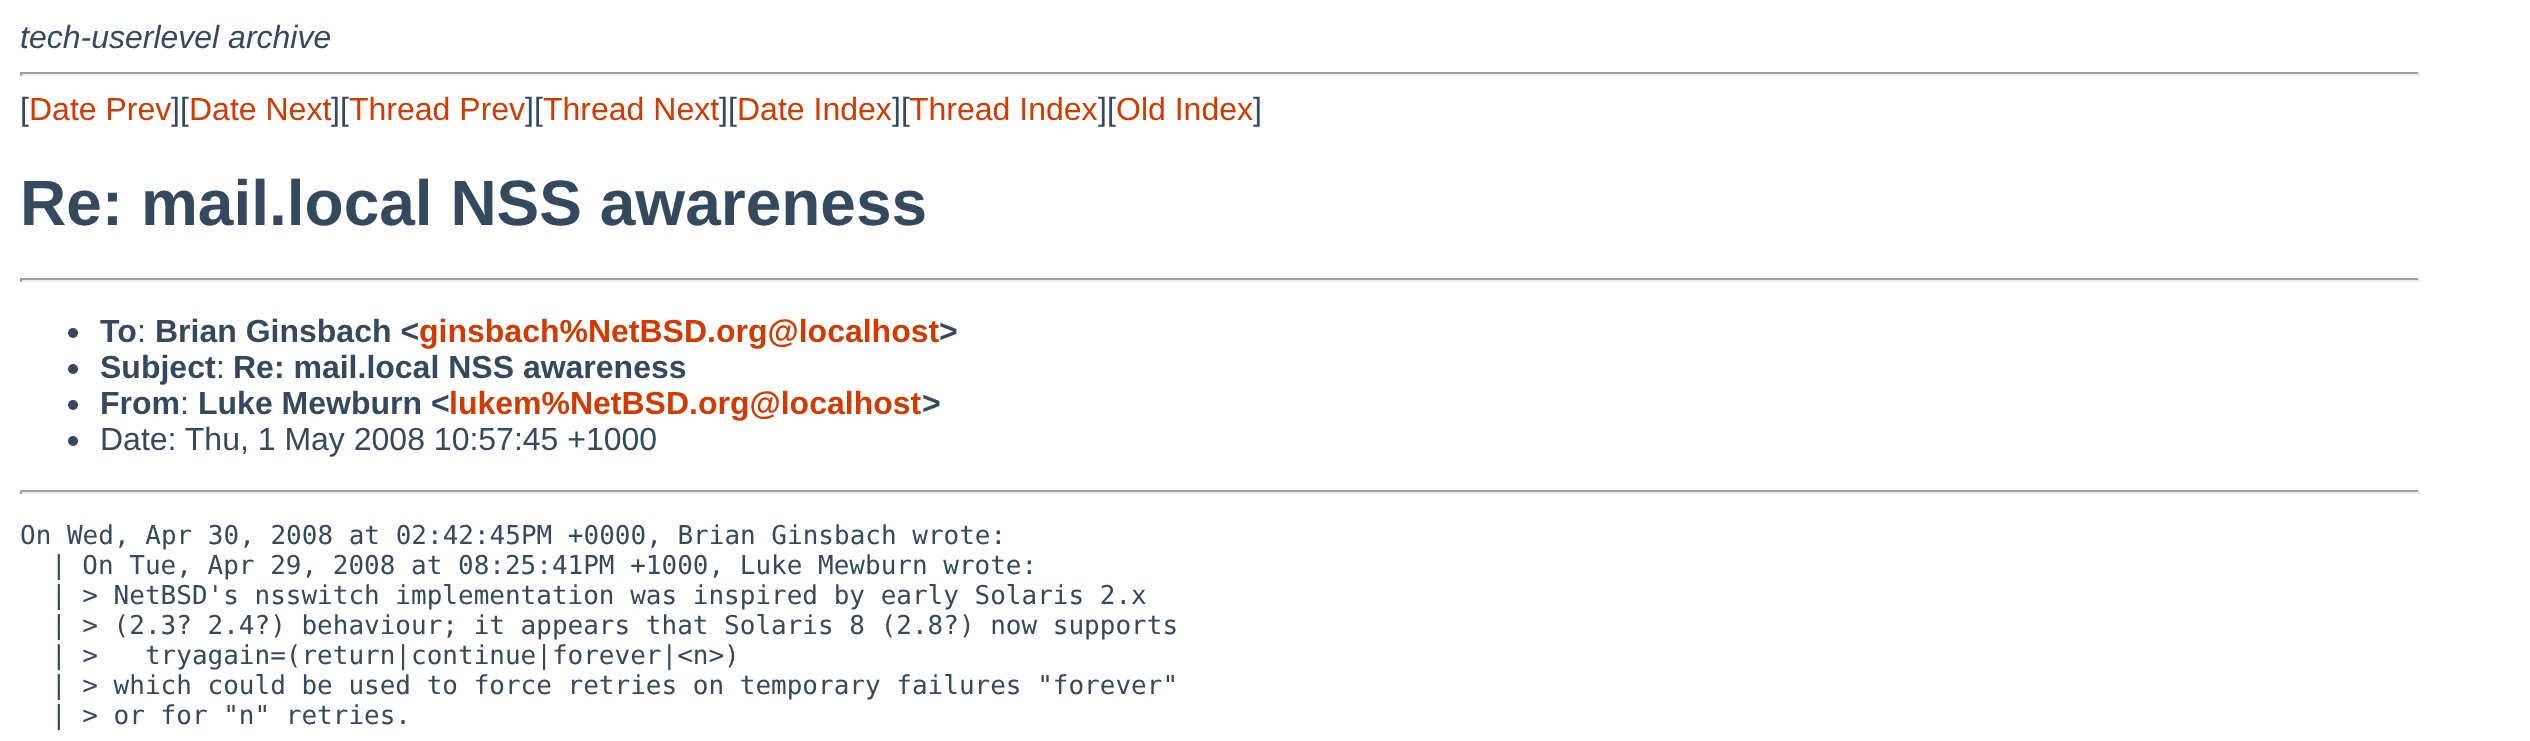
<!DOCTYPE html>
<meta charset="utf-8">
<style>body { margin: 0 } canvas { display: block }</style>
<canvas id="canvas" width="2530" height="741"></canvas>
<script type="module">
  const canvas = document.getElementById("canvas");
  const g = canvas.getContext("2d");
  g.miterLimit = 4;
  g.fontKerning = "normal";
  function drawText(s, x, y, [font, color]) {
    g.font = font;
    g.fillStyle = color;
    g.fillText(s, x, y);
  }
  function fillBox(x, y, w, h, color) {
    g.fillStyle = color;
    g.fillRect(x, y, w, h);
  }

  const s1 = ["italic 32px Liberation Sans", "#34495E"];
  const s2 = ["32px Liberation Sans", "#34495E"];
  const s3 = ["32px Liberation Sans", "#D43900"];
  const s4 = ["bold 64px Liberation Sans", "#34495E"];
  const s5 = ["bold 32px Liberation Sans", "#34495E"];
  const s6 = ["bold 32px Liberation Sans", "#D43900"];
  const s7 = ["26px DejaVu Sans Mono", "#34495E"];

  fillBox(0, 0, 2530, 741, "#FFFFFF");
  drawText("tech-userlevel archive", 20, 48, s1);
  fillBox(20, 72, 2400, 2, "#9F9F9F");
  fillBox(2418, 72, 2, 4, "#EEEEEE");
  fillBox(20, 74, 2400, 2, "#EEEEEE");
  fillBox(20, 72, 2, 4, "#9F9F9F");
  drawText("[", 20, 120, s2);
  drawText("Date Prev", 29, 120, s3);
  drawText("][", 171, 120, s2);
  drawText("Date Next", 189, 120, s3);
  drawText("][", 331, 120, s2);
  drawText("Thread Prev", 349, 120, s3);
  drawText("][", 525, 120, s2);
  drawText("Thread Next", 543, 120, s3);
  drawText("][", 719, 120, s2);
  drawText("Date Index", 737, 120, s3);
  drawText("][", 892, 120, s2);
  drawText("Thread Index", 909, 120, s3);
  drawText("][", 1098, 120, s2);
  drawText("Old Index", 1116, 120, s3);
  drawText("]", 1253, 120, s2);
  drawText("Re: mail.local NSS awareness", 20, 225, s4);
  fillBox(20, 278, 2400, 2, "#9F9F9F");
  fillBox(2418, 278, 2, 4, "#EEEEEE");
  fillBox(20, 280, 2400, 2, "#EEEEEE");
  fillBox(20, 278, 2, 4, "#9F9F9F");
  g.fillStyle = "#34495E";
  g.beginPath();
  g.arc(73, 333, 5, 0, Math.PI * 2);
  g.fill();
  drawText("To", 100, 342, s5);
  drawText(":", 137, 342, s2);
  drawText("Brian Ginsbach <", 155, 342, s5);
  drawText("ginsbach%NetBSD.org@localhost", 419, 342, s6);
  drawText(">", 939, 342, s5);
  g.beginPath();
  g.arc(73, 369, 5, 0, Math.PI * 2);
  g.fill();
  drawText("Subject", 100, 378, s5);
  drawText(":", 216, 378, s2);
  drawText("Re: mail.local NSS awareness", 233, 378, s5);
  g.beginPath();
  g.arc(73, 405, 5, 0, Math.PI * 2);
  g.fill();
  drawText("From", 100, 414, s5);
  drawText(":", 180, 414, s2);
  drawText("Luke Mewburn <", 198, 414, s5);
  drawText("lukem%NetBSD.org@localhost", 449, 414, s6);
  drawText(">", 922, 414, s5);
  g.beginPath();
  g.arc(73, 441, 5, 0, Math.PI * 2);
  g.fill();
  drawText("Date: Thu, 1 May 2008 10:57:45 +1000", 100, 450, s2);
  fillBox(20, 490, 2400, 2, "#9F9F9F");
  fillBox(2418, 490, 2, 4, "#EEEEEE");
  fillBox(20, 492, 2400, 2, "#EEEEEE");
  fillBox(20, 490, 2, 4, "#9F9F9F");
  drawText("On Wed, Apr 30, 2008 at 02:42:45PM +0000, Brian Ginsbach wrote:", 20, 544, s7);
  drawText("| On Tue, Apr 29, 2008 at 08:25:41PM +1000, Luke Mewburn wrote:", 51, 574, s7);
  drawText("| > NetBSD's nsswitch implementation was inspired by early Solaris 2.x", 51, 604, s7);
  drawText("| > (2.3? 2.4?) behaviour; it appears that Solaris 8 (2.8?) now supports", 51, 634, s7);
  drawText("| >   tryagain=(return|continue|forever|<n>)", 51, 664, s7);
  drawText("| > which could be used to force retries on temporary failures \"forever\"", 51, 694, s7);
  drawText("| > or for \"n\" retries.", 51, 724, s7);
</script>
